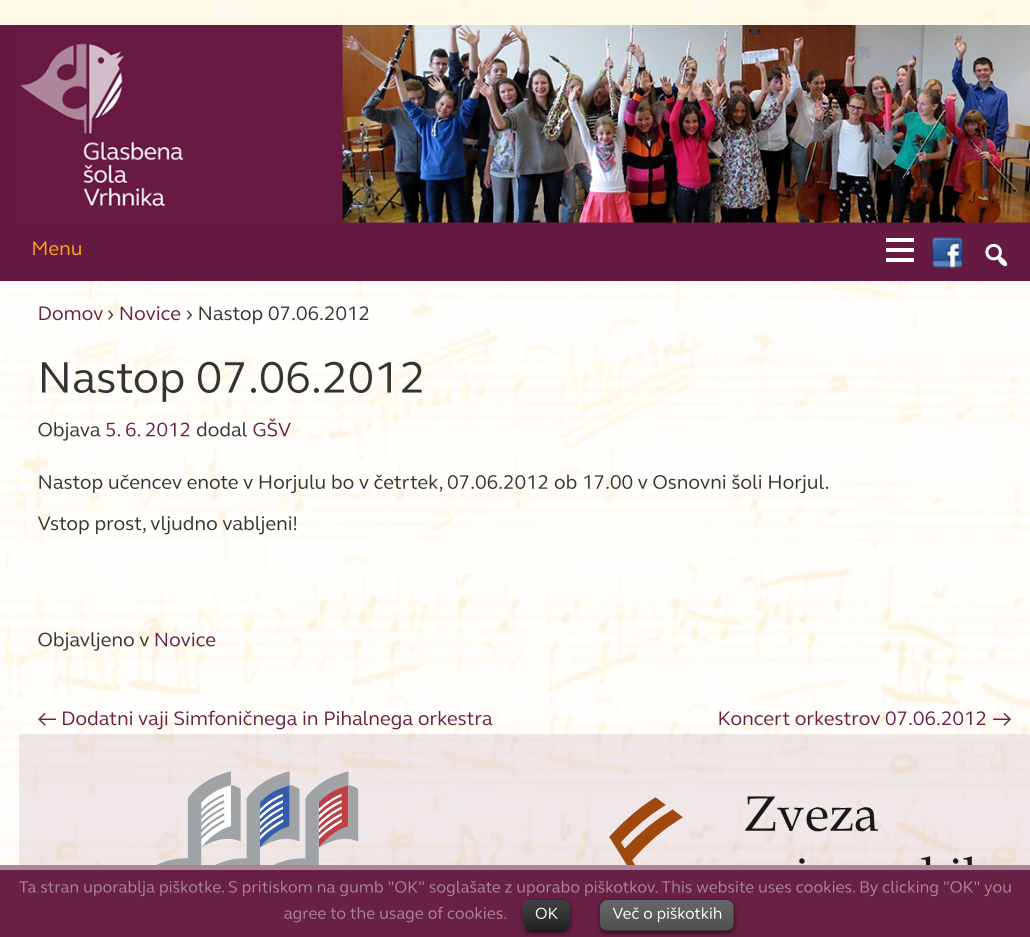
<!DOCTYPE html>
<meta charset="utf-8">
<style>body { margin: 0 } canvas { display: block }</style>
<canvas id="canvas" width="1030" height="937"></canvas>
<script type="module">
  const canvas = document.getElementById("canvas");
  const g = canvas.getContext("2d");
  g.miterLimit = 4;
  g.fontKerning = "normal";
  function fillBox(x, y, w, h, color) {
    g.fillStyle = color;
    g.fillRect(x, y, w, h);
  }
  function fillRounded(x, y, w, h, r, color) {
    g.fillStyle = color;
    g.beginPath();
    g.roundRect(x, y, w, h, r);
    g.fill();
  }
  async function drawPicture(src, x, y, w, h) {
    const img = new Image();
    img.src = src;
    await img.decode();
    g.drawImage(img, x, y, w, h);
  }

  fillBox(0, 0, 1030, 937, "#FFFFFF");
  await drawPicture("pic1.png", 0, 0, 1030, 865);
  fillBox(0, 25, 1030, 256, "#671A41");
  await drawPicture("pic2.png", 20, 25, 1010, 198);
  await drawPicture("pic3.png", 33, 241, 48, 15);
  await drawPicture("pic4.png", 886, 238, 28, 24);
  await drawPicture("pic5.png", 932, 237, 31, 31);
  await drawPicture("pic6.png", 985, 243, 23, 24);
  fillBox(0, 281, 1030, 584, "rgba(255, 255, 255, 0.8)");
  await drawPicture("pic7.png", 39, 306, 64, 15);
  await drawPicture("pic8.png", 108, 310, 6, 10);
  await drawPicture("pic9.png", 120, 306, 61, 15);
  await drawPicture("pic10.png", 187, 310, 5, 10);
  await drawPicture("pic11.png", 199, 306, 170, 19);
  await drawPicture("pic12.png", 42, 361, 380, 41);
  await drawPicture("pic13.png", 38, 422, 63, 19);
  await drawPicture("pic14.png", 106, 422, 84, 15);
  await drawPicture("pic15.png", 196, 422, 51, 15);
  await drawPicture("pic16.png", 253, 418, 38, 19);
  await drawPicture("pic17.png", 39, 474, 790, 20);
  await drawPicture("pic18.png", 38, 515, 259, 20);
  await drawPicture("pic19.png", 38, 632, 111, 19);
  await drawPicture("pic20.png", 155, 632, 61, 15);
  await drawPicture("pic21.png", 38, 712, 19, 14);
  await drawPicture("pic22.png", 63, 710, 430, 20);
  await drawPicture("pic23.png", 719, 710, 267, 16);
  await drawPicture("pic24.png", 993, 712, 18, 14);
  fillBox(19, 734, 1011, 131, "rgba(105, 32, 69, 0.1)");
  await drawPicture("pic25.png", 156, 771, 203, 94);
  await drawPicture("pic26.png", 609, 796, 363, 69);
  fillBox(0, 870, 1030, 67, "#692045");
  fillBox(0, 865, 1030, 5, "#AD8599");
  await drawPicture("pic27.png", 19, 880, 992, 17);
  await drawPicture("pic28.png", 284, 906, 223, 17);
  g.fillStyle = "rgba(0, 0, 0, 0.6)";
  g.filter = "blur(2px)";
  g.beginPath();
  g.roundRect(523, 901, 47, 32, 8);
  g.fill();
  g.filter = "none";
  fillRounded(523, 900, 47, 31, 8, "#000000");
  await drawPicture("pic29.png", 522, 900, 48, 31);
  fillBox(526, 930, 40, 1, "rgba(0, 0, 0, 0.25)");
  await drawPicture("pic30.png", 535, 907, 23, 12);
  g.fillStyle = "rgba(0, 0, 0, 0.6)";
  g.filter = "blur(2px)";
  g.beginPath();
  g.roundRect(600, 901, 134, 32, 8);
  g.fill();
  g.filter = "none";
  fillRounded(600, 900, 134, 31, 8, "#333333");
  await drawPicture("pic31.png", 600, 900, 134, 31);
  fillBox(604, 930, 126, 1, "rgba(0, 0, 0, 0.25)");
  await drawPicture("pic32.png", 612, 907, 110, 16);
</script>
